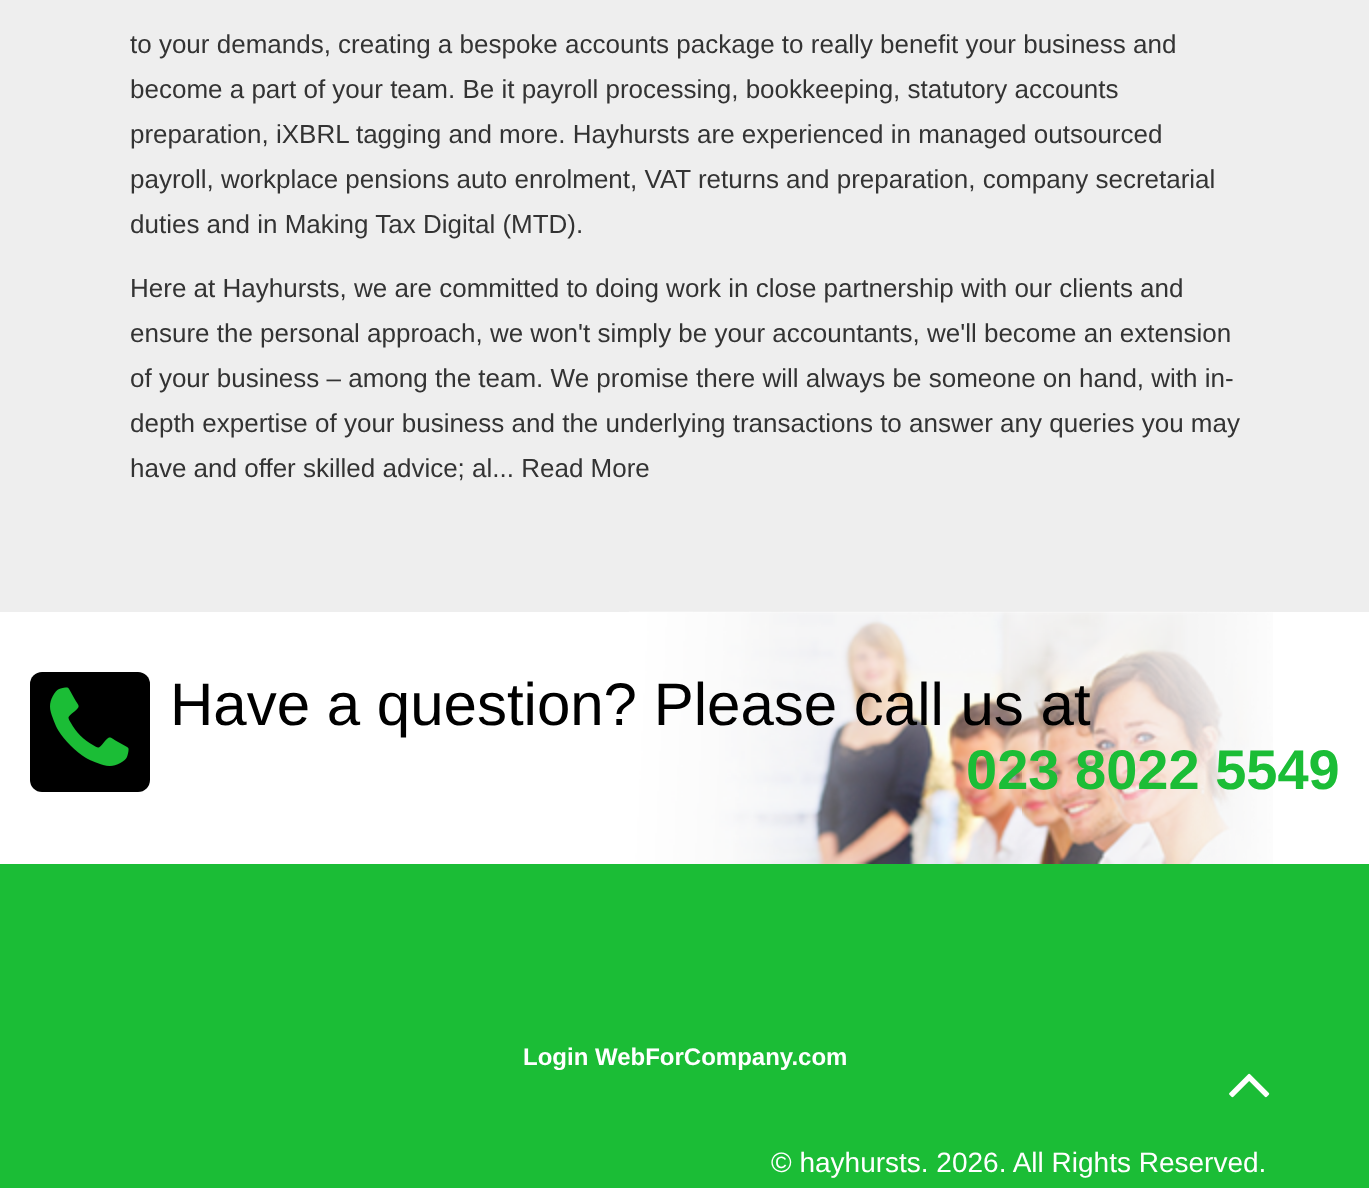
<!DOCTYPE html>
<meta charset="utf-8">
<style>body { margin: 0 } canvas { display: block }</style>
<canvas id="canvas" width="1369" height="1188"></canvas>
<script type="module">
  const canvas = document.getElementById("canvas");
  const g = canvas.getContext("2d");
  g.miterLimit = 4;
  g.fontKerning = "normal";
  function drawText(s, x, y, [font, color]) {
    g.font = font;
    g.fillStyle = color;
    g.fillText(s, x, y);
  }
  function fillBox(x, y, w, h, color) {
    g.fillStyle = color;
    g.fillRect(x, y, w, h);
  }
  function fillRounded(x, y, w, h, r, color) {
    g.fillStyle = color;
    g.beginPath();
    g.roundRect(x, y, w, h, r);
    g.fill();
  }
  async function drawPicture(src, x, y, w, h) {
    const img = new Image();
    img.src = src;
    await img.decode();
    g.drawImage(img, x, y, w, h);
  }

  const s1 = ["26px Liberation Sans", "#333333"];
  const s2 = ["60px Liberation Sans", "#000000"];
  const s3 = ["bold 56px Liberation Sans", "#1BBD36"];
  const s4 = ["bold 24px Liberation Sans", "#FFFFFF"];
  const s5 = ["28px Liberation Sans", "#FFFFFF"];

  fillBox(0, 0, 1369, 1188, "#FFFFFF");
  fillBox(0, 0, 1369, 612, "#EEEEEE");
  drawText("to your demands, creating a bespoke accounts package to really benefit your business and", 130, 53, s1);
  drawText("become a part of your team. Be it payroll processing, bookkeeping, statutory accounts", 130, 98, s1);
  drawText("preparation, iXBRL tagging and more. Hayhursts are experienced in managed outsourced", 130, 143, s1);
  drawText("payroll, workplace pensions auto enrolment, VAT returns and preparation, company secretarial", 130, 188, s1);
  drawText("duties and in Making Tax Digital (MTD).", 130, 233, s1);
  drawText("Here at Hayhursts, we are committed to doing work in close partnership with our clients and", 130, 297, s1);
  drawText("ensure the personal approach, we won't simply be your accountants, we'll become an extension", 130, 342, s1);
  drawText("of your business – among the team. We promise there will always be someone on hand, with in-", 130, 387, s1);
  drawText("depth expertise of your business and the underlying transactions to answer any queries you may", 130, 432, s1);
  drawText("have and offer skilled advice; al... Read More", 130, 477, s1);
  await drawPicture("pic1.png", 629, 611, 644, 253);
  fillRounded(30, 672, 120, 120, 12, "#000000");
  await drawPicture("pic2.png", 50, 687, 79, 79);
  drawText("Have a question? Please call us at", 170, 725, s2);
  drawText("023 8022 5549", 966, 789, s3);
  fillBox(0, 864, 1369, 324, "#1BBD36");
  drawText("Login WebForCompany.com", 523, 1065, s4);
  drawText("© hayhursts. 2026. All Rights Reserved.", 771, 1172, s5);
  await drawPicture("pic3.png", 1229, 1073, 41, 25);
</script>
